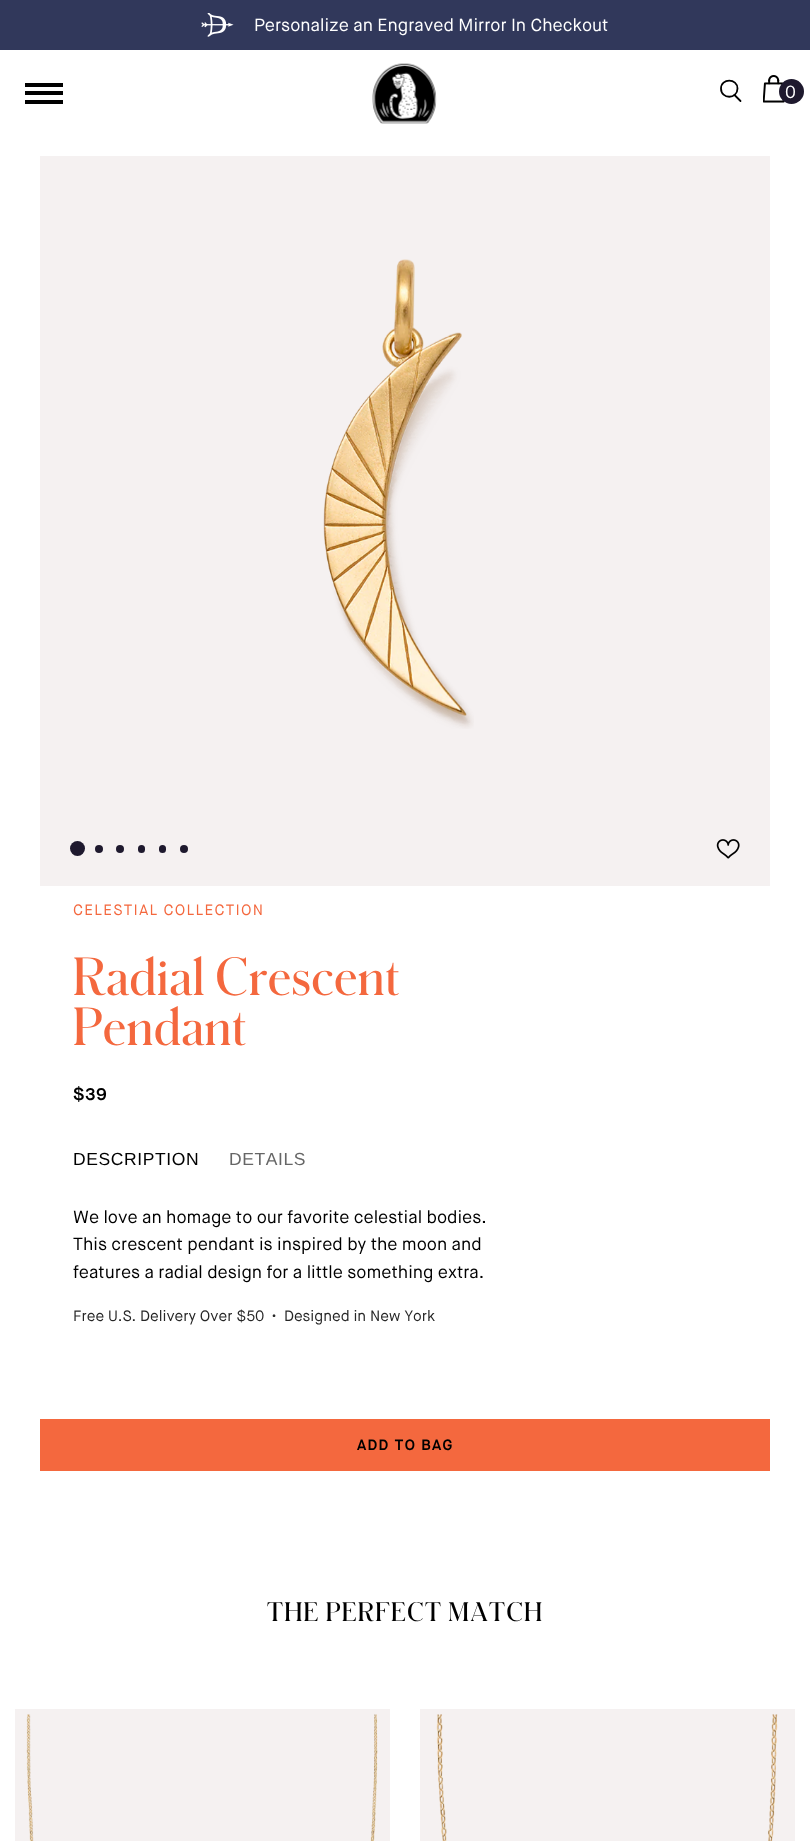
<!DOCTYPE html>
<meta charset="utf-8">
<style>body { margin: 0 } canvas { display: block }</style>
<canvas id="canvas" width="810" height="1841"></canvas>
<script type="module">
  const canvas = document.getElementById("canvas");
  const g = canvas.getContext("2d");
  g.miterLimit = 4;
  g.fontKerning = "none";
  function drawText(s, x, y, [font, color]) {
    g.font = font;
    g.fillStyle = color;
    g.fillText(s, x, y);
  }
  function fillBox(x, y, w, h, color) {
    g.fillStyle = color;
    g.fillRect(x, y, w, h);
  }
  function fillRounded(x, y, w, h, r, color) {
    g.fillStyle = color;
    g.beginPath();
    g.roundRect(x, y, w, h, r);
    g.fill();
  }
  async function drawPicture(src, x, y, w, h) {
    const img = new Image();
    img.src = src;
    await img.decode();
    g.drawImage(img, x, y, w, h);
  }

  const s1 = ["17.5px Maison Neue", "#FFFFFF"];
  const s2 = ["15px Maison Neue", "#F4683E"];
  const s3 = ["600 50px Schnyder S", "#F4683E"];
  const s4 = ["600 17.5px Maison Neue", "#000000"];
  const s5 = ["17.5px Liberation Sans", "#000000"];
  const s6 = ["17.5px Liberation Sans", "#666666"];
  const s7 = ["17.5px Maison Neue", "#000000"];
  const s8 = ["15px Maison Neue", "#262626"];
  const s9 = ["600 15px Maison Neue", "#000000"];
  const s10 = ["600 25px Schnyder S", "#000000"];

  fillBox(0, 0, 810, 1841, "#FFFFFF");
  fillBox(0, 0, 810, 50, "#31385B");
  await drawPicture("pic1.png", 201, 13, 33, 24);
  drawText("Personalize an Engraved Mirror In Checkout", 254, 31, s1);
  fillBox(25, 83, 38, 4, "#000000");
  fillBox(25, 91, 38, 4, "#000000");
  fillBox(25, 100, 38, 4, "#000000");
  await drawPicture("pic2.png", 372, 63, 65, 61);
  g.beginPath();
  g.moveTo(737.5, 88.5);
  g.bezierCurveTo(737.5, 99.5, 721, 99.5, 721, 88.5);
  g.bezierCurveTo(721, 78, 737.5, 78, 737.5, 88.5);
  g.closePath();
  g.strokeStyle = "#000000";
  g.lineWidth = 1.8;
  g.stroke();
  g.beginPath();
  g.moveTo(734.5, 95);
  g.lineTo(740.5, 101);
  g.lineCap = "round";
  g.stroke();
  await drawPicture("pic3.png", 763, 75, 22, 28);
  g.fillStyle = "#1E192E";
  g.beginPath();
  g.arc(791.5, 91.5, 12.5, 0, Math.PI * 2);
  g.fill();
  g.letterSpacing = "1.25px";
  drawText("0", 785, 98, s1);
  fillBox(40, 156, 730, 730, "#F5F1F1");
  await drawPicture("pic4.png", 323, 259, 151, 470);
  g.fillStyle = "#1E192E";
  g.beginPath();
  g.arc(77.5, 848.5, 7.5, 0, Math.PI * 2);
  g.fill();
  g.beginPath();
  g.arc(99, 849, 4, 0, Math.PI * 2);
  g.fill();
  g.beginPath();
  g.arc(120, 849, 4, 0, Math.PI * 2);
  g.fill();
  fillRounded(138, 845, 7, 8, 3.5, "#1E192E");
  fillRounded(159, 845, 7, 8, 3.5, "#1E192E");
  g.beginPath();
  g.arc(184, 849, 4, 0, Math.PI * 2);
  g.fill();
  await drawPicture("pic5.png", 716, 839, 24, 20);
  drawText("CELESTIAL COLLECTION", 73, 915, s2);
  g.letterSpacing = "0.25px";
  drawText("Radial Crescent", 73, 995, s3);
  drawText("Pendant", 73, 1045, s3);
  g.letterSpacing = "0.6px";
  drawText("$39", 73, 1100, s4);
  drawText("DESCRIPTION", 73, 1165, s5);
  drawText("DETAILS", 229, 1165, s6);
  g.letterSpacing = "0px";
  drawText("We love an homage to our favorite celestial bodies.", 73, 1223, s7);
  drawText("This crescent pendant is inspired by the moon and", 73, 1250, s7);
  drawText("features a radial design for a little something extra.", 73, 1278, s7);
  drawText("Free U.S. Delivery Over $50  •  Designed in New York", 73, 1321, s8);
  fillBox(40, 1419, 730, 52, "#F4683E");
  g.letterSpacing = "1.25px";
  drawText("ADD TO BAG", 357, 1450, s9);
  drawText("THE PERFECT MATCH", 267, 1621, s10);
  fillBox(15, 1709, 375, 132, "#F5F1F1");
  await drawPicture("pic6.png", 26, 1714, 352, 127);
  fillBox(420, 1709, 375, 132, "#F5F1F1");
  await drawPicture("pic7.png", 436, 1714, 342, 127);
</script>
